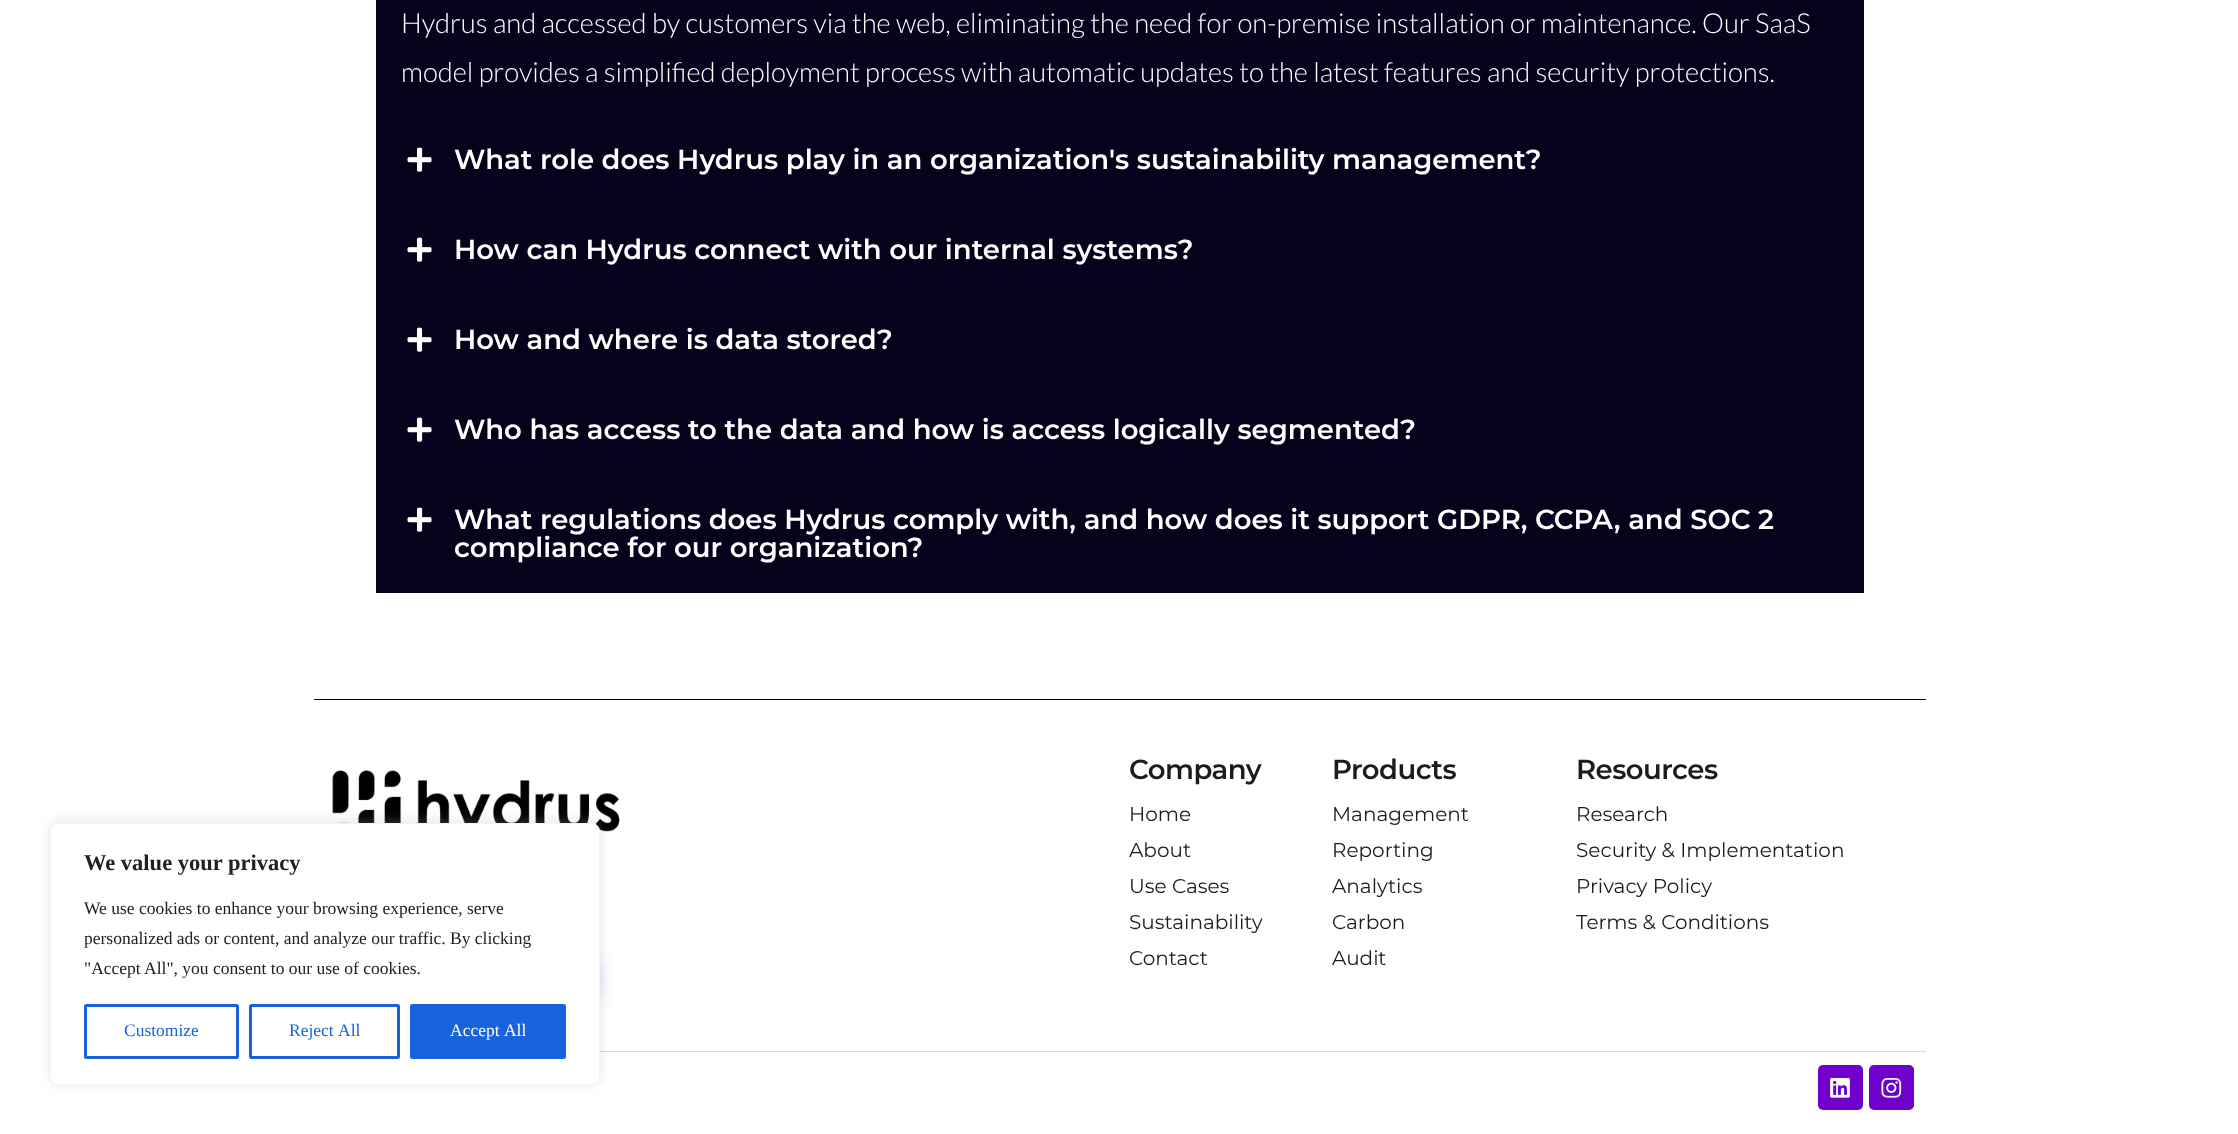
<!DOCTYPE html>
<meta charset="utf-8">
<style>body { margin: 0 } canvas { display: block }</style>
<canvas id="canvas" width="2238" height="1134"></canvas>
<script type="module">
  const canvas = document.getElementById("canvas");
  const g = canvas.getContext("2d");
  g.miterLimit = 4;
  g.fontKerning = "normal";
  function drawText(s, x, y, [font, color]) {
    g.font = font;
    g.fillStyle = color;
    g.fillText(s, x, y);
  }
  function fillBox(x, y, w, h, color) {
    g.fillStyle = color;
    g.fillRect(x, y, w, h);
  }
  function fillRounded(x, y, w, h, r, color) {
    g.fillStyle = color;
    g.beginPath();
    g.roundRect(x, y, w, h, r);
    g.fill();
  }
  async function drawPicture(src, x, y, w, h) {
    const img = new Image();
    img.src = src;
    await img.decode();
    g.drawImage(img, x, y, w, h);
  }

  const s1 = ["300 27.5px Lato", "#FFFFFF"];
  const s2 = ["600 27.5px Montserrat", "#FFFFFF"];
  const s3 = ["bold 22.5px Liberation Serif", "#212121"];
  const s4 = ["17.5px Liberation Serif", "#212121"];
  const s5 = ["17.5px Liberation Serif", "#1863DC"];
  const s6 = ["17.5px Liberation Serif", "#FFFFFF"];
  const s7 = ["600 27.5px Montserrat", "#211A1D"];
  const s8 = ["20px Montserrat", "#211A1D"];

  fillBox(0, 0, 2238, 1134, "#FFFFFF");
  fillBox(376, 0, 1488, 593, "#08011B");
  drawText("Hydrus and accessed by customers via the web, eliminating the need for on-premise installation or maintenance. Our SaaS", 401, 33, s1);
  drawText("model provides a simplified deployment process with automatic updates to the latest features and security protections.", 401, 82, s1);
  await drawPicture("pic1.png", 407, 147, 25, 25);
  drawText("What role does Hydrus play in an organization's sustainability management?", 454, 169, s2);
  await drawPicture("pic1.png", 407, 237, 25, 25);
  drawText("How can Hydrus connect with our internal systems?", 454, 259, s2);
  await drawPicture("pic1.png", 407, 327, 25, 25);
  drawText("How and where is data stored?", 454, 349, s2);
  await drawPicture("pic1.png", 407, 417, 25, 25);
  drawText("Who has access to the data and how is access logically segmented?", 454, 439, s2);
  await drawPicture("pic1.png", 407, 507, 25, 25);
  drawText("What regulations does Hydrus comply with, and how does it support GDPR, CCPA, and SOC 2", 454, 529, s2);
  drawText("compliance for our organization?", 454, 557, s2);
  await drawPicture("pic2.png", 332, 770, 288, 62);
  fillBox(600, 1051, 1326, 1, "#D9DADC");
  g.fillStyle = "rgba(172, 171, 171, 0.3)";
  g.filter = "blur(6px)";
  g.beginPath();
  g.roundRect(50, 821, 550, 263, 8);
  g.fill();
  g.filter = "none";
  g.fillStyle = "rgba(126, 0, 231, 0.65)";
  g.filter = "blur(12px)";
  g.beginPath();
  g.roundRect(361, 958, 229, 40, 20);
  g.fill();
  g.filter = "none";
  g.fillStyle = "#FFFFFF";
  g.beginPath();
  g.roundRect(50.5, 823.5, 549, 261, 7.5);
  g.fill();
  g.strokeStyle = "#F4F4F4";
  g.stroke();
  drawText("We value your privacy", 84, 870, s3);
  drawText("We use cookies to enhance your browsing experience, serve", 84, 914, s4);
  drawText("personalized ads or content, and analyze our traffic. By clicking", 84, 944, s4);
  drawText("\"Accept All\", you consent to our use of cookies.", 84, 974, s4);
  g.beginPath();
  g.roundRect(85.5, 1005.5, 152, 52, 1);
  g.strokeStyle = "#1863DC";
  g.lineWidth = 3;
  g.stroke();
  drawText("Customize", 124, 1036, s5);
  g.beginPath();
  g.roundRect(250.5, 1005.5, 148, 52, 1);
  g.stroke();
  g.wordSpacing = "1px";
  drawText("Reject All", 289, 1036, s5);
  g.beginPath();
  g.roundRect(411.5, 1005.5, 153, 52, 1);
  g.fill();
  g.stroke();
  drawText("Accept All", 450, 1036, s6);
  fillBox(314, 699, 1612, 1, "#000000");
  g.letterSpacing = "-0.5px";
  g.wordSpacing = "0px";
  drawText("Company", 1129, 779, s7);
  g.letterSpacing = "0px";
  drawText("Home", 1129, 821, s8);
  drawText("About", 1129, 857, s8);
  drawText("Use Cases", 1129, 893, s8);
  drawText("Sustainability", 1129, 929, s8);
  drawText("Contact", 1129, 965, s8);
  g.letterSpacing = "-0.5px";
  drawText("Products", 1332, 779, s7);
  g.letterSpacing = "0px";
  drawText("Management", 1332, 821, s8);
  drawText("Reporting", 1332, 857, s8);
  drawText("Analytics", 1332, 893, s8);
  drawText("Carbon", 1332, 929, s8);
  drawText("Audit", 1332, 965, s8);
  g.letterSpacing = "-0.5px";
  drawText("Resources", 1576, 779, s7);
  g.letterSpacing = "0px";
  drawText("Research", 1576, 821, s8);
  drawText("Security & Implementation", 1576, 857, s8);
  drawText("Privacy Policy", 1576, 893, s8);
  drawText("Terms & Conditions", 1576, 929, s8);
  fillRounded(1818, 1065, 45, 45, 5, "#7000CC");
  await drawPicture("pic3.png", 1830, 1078, 20, 20);
  fillRounded(1869, 1065, 45, 45, 5, "#7000CC");
  await drawPicture("pic4.png", 1881, 1078, 21, 20);
</script>
